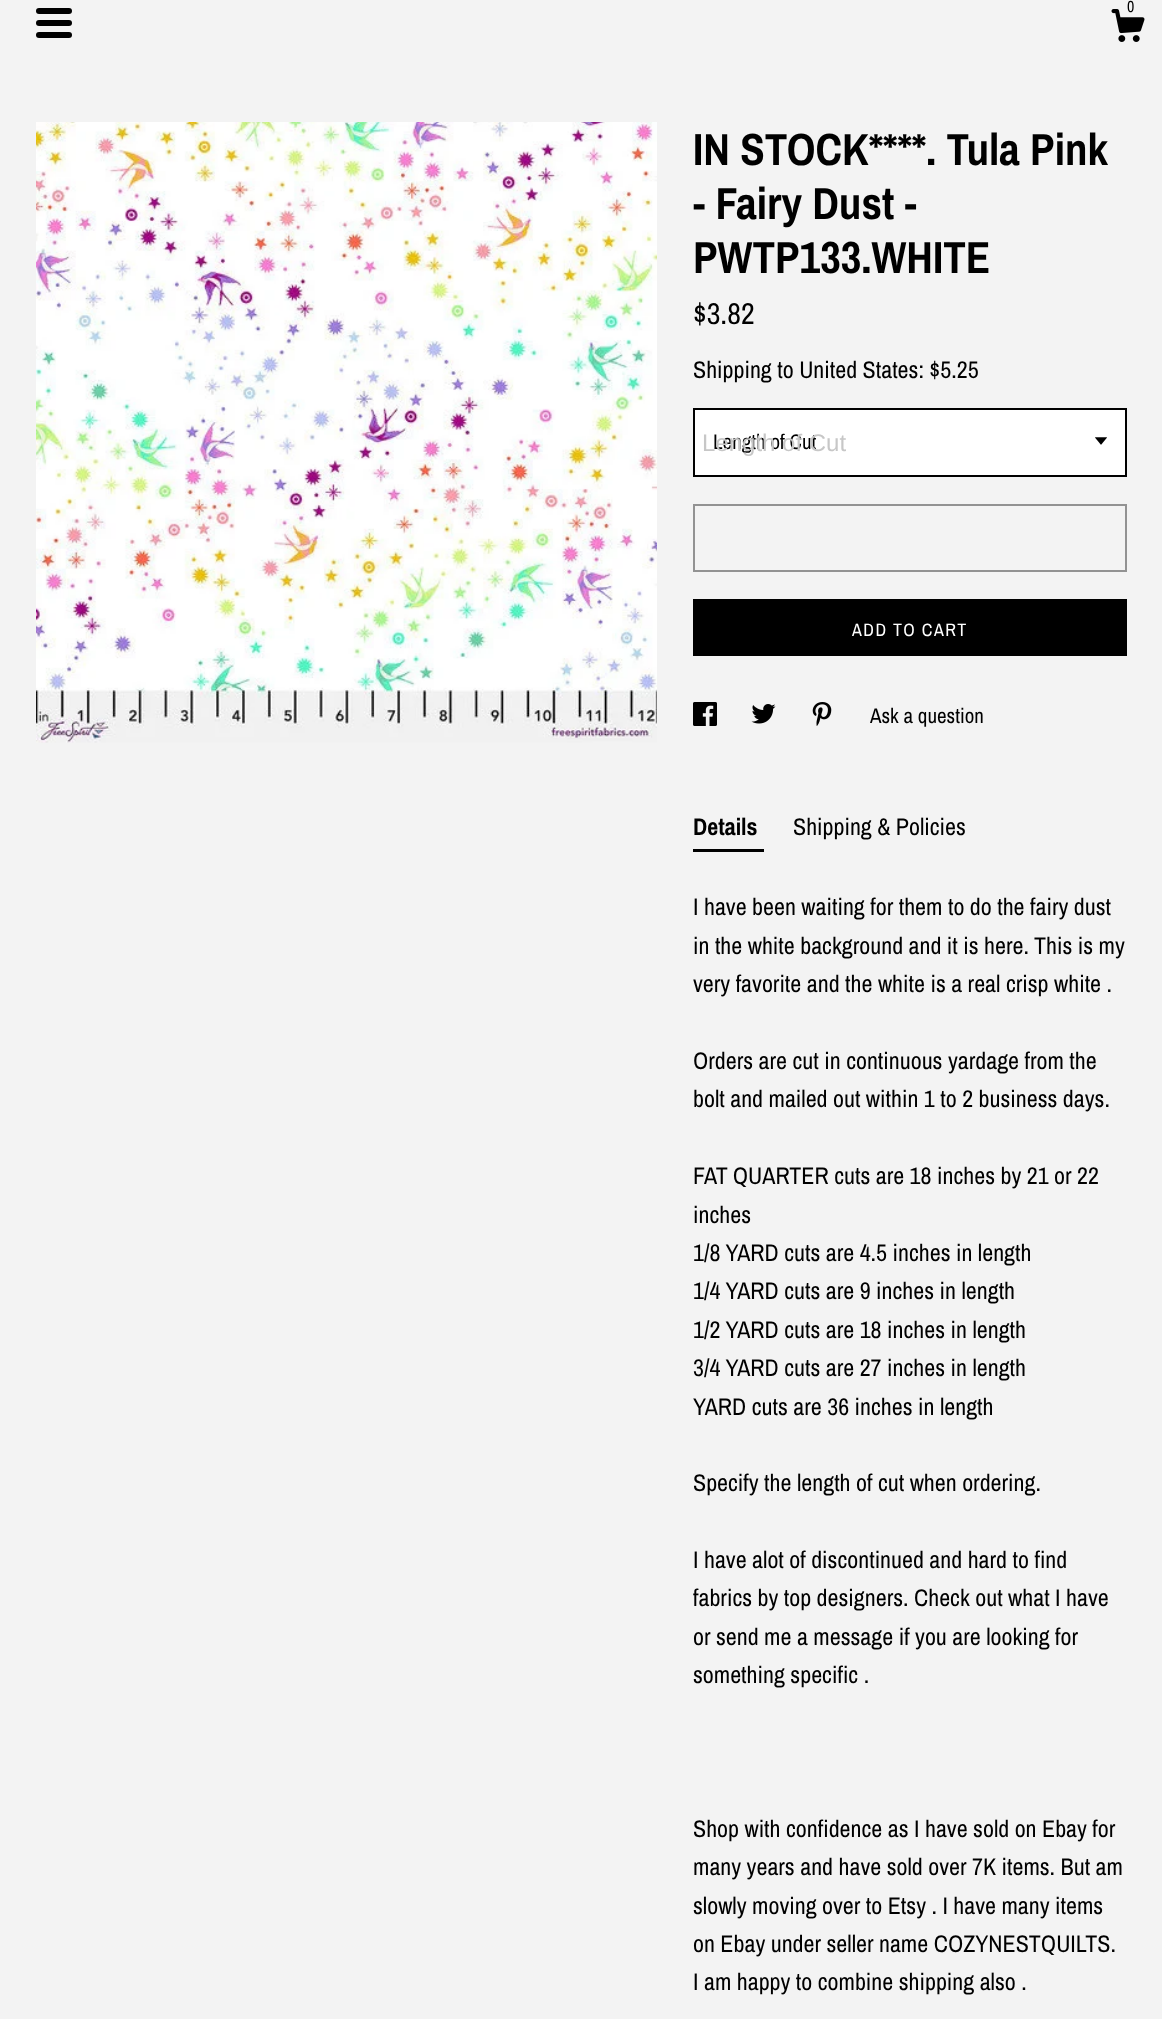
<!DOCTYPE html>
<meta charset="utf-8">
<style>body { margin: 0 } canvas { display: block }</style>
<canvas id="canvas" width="1162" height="2019"></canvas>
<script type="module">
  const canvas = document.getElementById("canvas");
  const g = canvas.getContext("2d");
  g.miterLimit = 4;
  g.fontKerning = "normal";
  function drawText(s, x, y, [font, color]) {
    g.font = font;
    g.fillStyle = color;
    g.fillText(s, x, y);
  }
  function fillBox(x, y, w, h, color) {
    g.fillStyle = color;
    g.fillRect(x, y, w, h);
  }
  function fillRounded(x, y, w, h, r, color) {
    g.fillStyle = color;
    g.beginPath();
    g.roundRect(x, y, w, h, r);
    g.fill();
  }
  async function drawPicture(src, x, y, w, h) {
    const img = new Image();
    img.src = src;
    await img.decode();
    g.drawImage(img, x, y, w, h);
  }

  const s1 = ["16px Archivo Narrow", "#000000"];
  const s2 = ["bold 45px Archivo Narrow", "#000000"];
  const s3 = ["30px Archivo Narrow", "#000000"];
  const s4 = ["24px Archivo Narrow", "#000000"];
  const s5 = ["21px Archivo Narrow", "#000000"];
  const s6 = ["24px Liberation Sans", "#C7C7C7"];
  const s7 = ["18px Archivo Narrow", "#FFFFFF"];
  const s8 = ["bold 24px Archivo Narrow", "#000000"];

  fillBox(0, 0, 1162, 2019, "#F3F3F3");
  await drawPicture("pic1.png", 1111, 9, 34, 33);
  drawText("0", 1127, 12, s1);
  fillRounded(36, 8, 36, 6, 3, "#000000");
  fillRounded(36, 20, 36, 6, 3, "#000000");
  fillRounded(36, 32, 36, 6, 3, "#000000");
  await drawPicture("pic2.png", 36, 122, 621, 621);
  drawText("IN STOCK****. Tula Pink", 693, 165, s2);
  drawText("- Fairy Dust -", 693, 219, s2);
  drawText("PWTP133.WHITE", 693, 273, s2);
  drawText("$3.82", 693, 324, s3);
  drawText("Shipping to United States: $5.25", 693, 378, s4);
  g.fillStyle = "#FFFFFF";
  g.beginPath();
  g.rect(694, 409, 432, 67);
  g.fill();
  g.strokeStyle = "#000000";
  g.lineWidth = 2;
  g.stroke();
  drawText("Length of Cut", 713, 449, s5);
  drawText("Length of Cut", 702, 451, s6);
  await drawPicture("pic3.png", 1095, 437, 12, 8);
  g.strokeStyle = "#929292";
  g.strokeRect(694, 505, 432, 66);
  fillBox(693, 599, 434, 57, "#000000");
  g.letterSpacing = "1.5px";
  drawText("ADD TO CART", 852, 636, s7);
  await drawPicture("pic4.png", 693, 702, 24, 24);
  await drawPicture("pic5.png", 751, 704, 25, 20);
  await drawPicture("pic6.png", 812, 702, 20, 24);
  g.letterSpacing = "0px";
  drawText("Ask a question", 870, 723, s5);
  drawText("Details", 693, 835, s8);
  fillBox(693, 849, 71, 3, "#000000");
  drawText("Shipping & Policies", 793, 835, s4);
  drawText("I have been waiting for them to do the fairy dust", 693, 915, s4);
  drawText("in the white background and it is here. This is my", 693, 954, s4);
  drawText("very favorite and the white is a real crisp white .", 693, 992, s4);
  drawText("Orders are cut in continuous yardage from the", 693, 1069, s4);
  drawText("bolt and mailed out within 1 to 2 business days.", 693, 1107, s4);
  drawText("FAT QUARTER cuts are 18 inches by 21 or 22", 693, 1184, s4);
  drawText("inches", 693, 1223, s4);
  drawText("1/8 YARD cuts are 4.5 inches in length", 693, 1261, s4);
  drawText("1/4 YARD cuts are 9 inches in length", 693, 1299, s4);
  drawText("1/2 YARD cuts are 18 inches in length", 693, 1338, s4);
  drawText("3/4 YARD cuts are 27 inches in length", 693, 1376, s4);
  drawText("YARD cuts are 36 inches in length", 693, 1415, s4);
  drawText("Specify the length of cut when ordering.", 693, 1491, s4);
  drawText("I have alot of discontinued and hard to find", 693, 1568, s4);
  drawText("fabrics by top designers. Check out what I have", 693, 1606, s4);
  drawText("or send me a message if you are looking for", 693, 1645, s4);
  drawText("something specific .", 693, 1683, s4);
  drawText("Shop with confidence as I have sold on Ebay for", 693, 1837, s4);
  drawText("many years and have sold over 7K items. But am", 693, 1875, s4);
  drawText("slowly moving over to Etsy . I have many items", 693, 1914, s4);
  drawText("on Ebay under seller name COZYNESTQUILTS.", 693, 1952, s4);
  drawText("I am happy to combine shipping also .", 693, 1990, s4);
</script>
